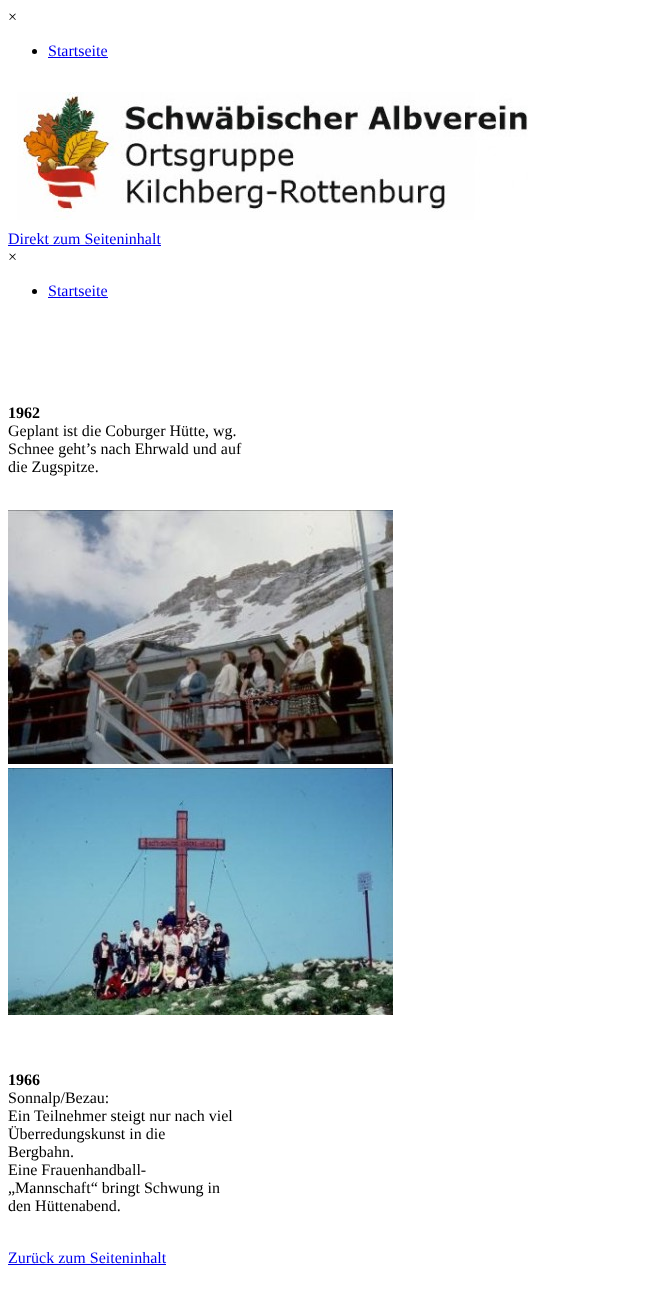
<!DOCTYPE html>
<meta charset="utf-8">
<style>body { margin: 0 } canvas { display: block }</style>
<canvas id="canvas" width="672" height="1310"></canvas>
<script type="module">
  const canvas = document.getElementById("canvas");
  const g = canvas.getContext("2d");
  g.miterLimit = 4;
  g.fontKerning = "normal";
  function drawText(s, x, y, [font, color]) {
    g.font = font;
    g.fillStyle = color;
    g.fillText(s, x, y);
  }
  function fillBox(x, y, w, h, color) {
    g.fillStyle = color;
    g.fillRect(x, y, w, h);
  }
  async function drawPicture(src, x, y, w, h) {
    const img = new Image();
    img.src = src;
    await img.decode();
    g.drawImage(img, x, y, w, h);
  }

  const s1 = ["16px Liberation Serif", "#000000"];
  const s2 = ["16px Liberation Serif", "#0000EE"];
  const s3 = ["bold 16px Liberation Serif", "#000000"];

  fillBox(0, 0, 672, 1310, "#FFFFFF");
  drawText("×", 8, 22, s1);
  g.beginPath();
  g.arc(34.5, 51.5, 2.5, 0, Math.PI * 2);
  g.fill();
  drawText("Startseite", 48, 56, s2);
  fillBox(48, 57, 60, 1, "#0000EE");
  await drawPicture("pic1.png", 17, 92, 511, 128);
  drawText("Direkt zum Seiteninhalt", 8, 244, s2);
  fillBox(8, 245, 153, 1, "#0000EE");
  drawText("×", 8, 262, s1);
  g.beginPath();
  g.arc(34.5, 291.5, 2.5, 0, Math.PI * 2);
  g.fill();
  drawText("Startseite", 48, 296, s2);
  fillBox(48, 297, 60, 1, "#0000EE");
  drawText("1962", 8, 418, s3);
  drawText("Geplant ist die Coburger Hütte, wg.", 8, 436, s1);
  drawText("Schnee geht’s nach Ehrwald und auf", 8, 454, s1);
  drawText("die Zugspitze.", 8, 472, s1);
  await drawPicture("pic2.png", 8, 510, 385, 254);
  await drawPicture("pic3.png", 8, 768, 385, 247);
  drawText("1966", 8, 1085, s3);
  drawText("Sonnalp/Bezau:", 8, 1103, s1);
  drawText("Ein Teilnehmer steigt nur nach viel", 8, 1121, s1);
  drawText("Überredungskunst in die", 8, 1139, s1);
  drawText("Bergbahn.", 8, 1157, s1);
  drawText("Eine Frauenhandball-", 8, 1175, s1);
  drawText("„Mannschaft“ bringt Schwung in", 8, 1193, s1);
  drawText("den Hüttenabend.", 8, 1211, s1);
  drawText("Zurück zum Seiteninhalt", 8, 1263, s2);
  fillBox(8, 1264, 158, 1, "#0000EE");
</script>
